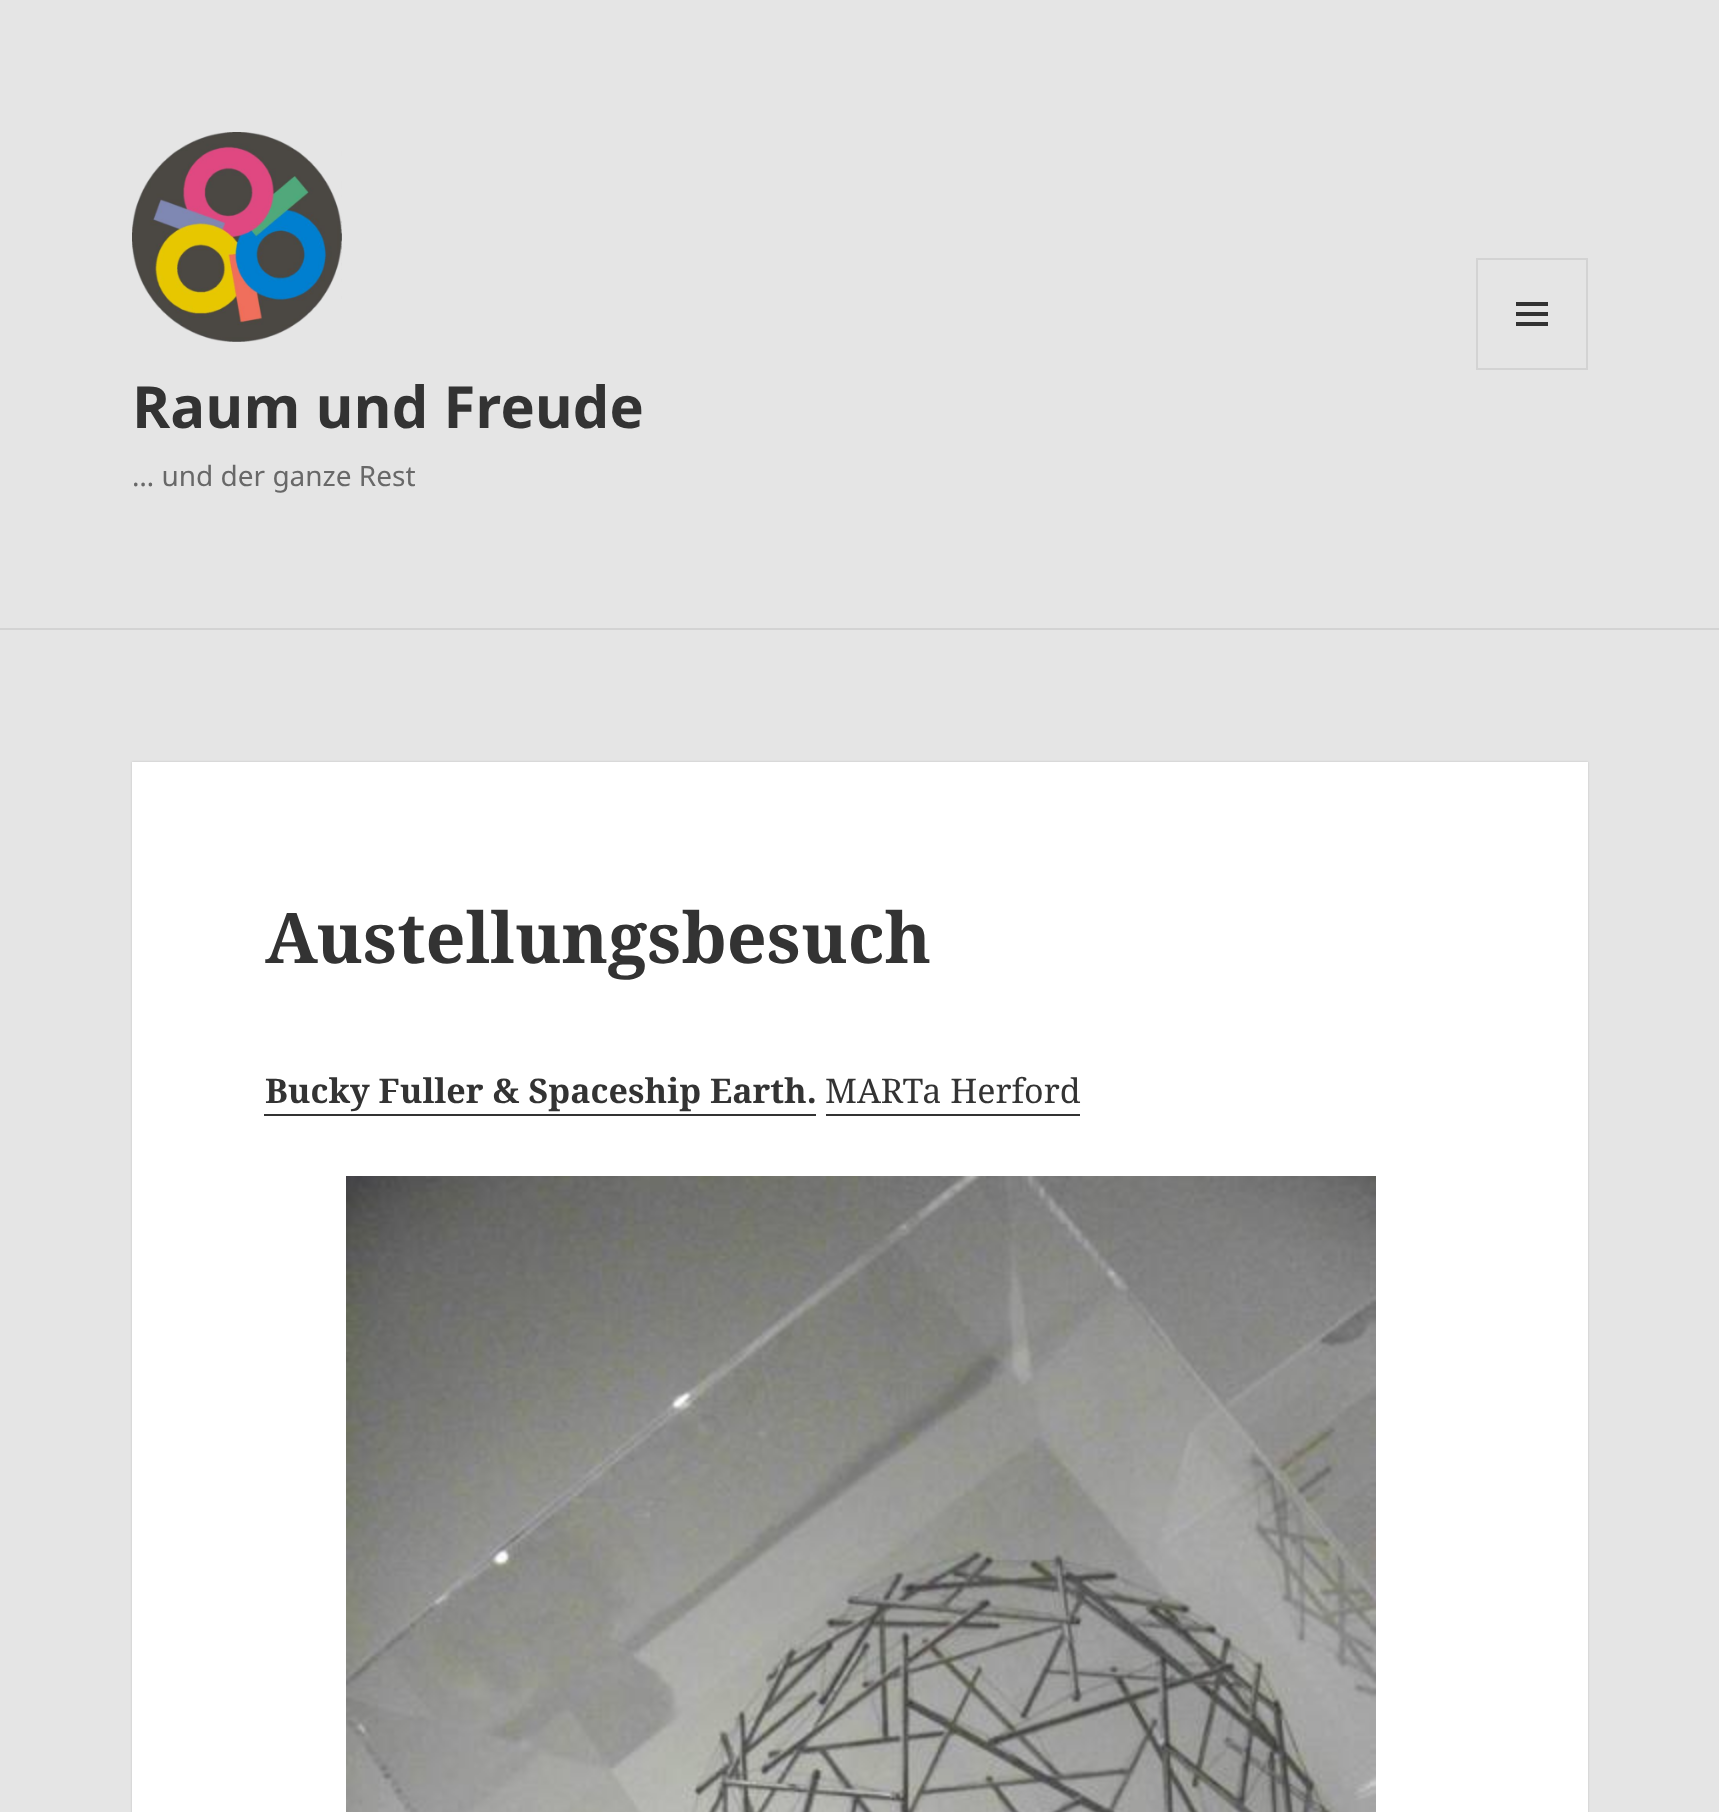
<!DOCTYPE html>
<meta charset="utf-8">
<style>body { margin: 0 } canvas { display: block }</style>
<canvas id="canvas" width="1719" height="1812"></canvas>
<script type="module">
  const canvas = document.getElementById("canvas");
  const g = canvas.getContext("2d");
  g.miterLimit = 4;
  g.fontKerning = "normal";
  function drawText(s, x, y, [font, color]) {
    g.font = font;
    g.fillStyle = color;
    g.fillText(s, x, y);
  }
  function fillBox(x, y, w, h, color) {
    g.fillStyle = color;
    g.fillRect(x, y, w, h);
  }
  async function drawPicture(src, x, y, w, h) {
    const img = new Image();
    img.src = src;
    await img.decode();
    g.drawImage(img, x, y, w, h);
  }

  const s1 = ["bold 58px Noto Sans", "#333333"];
  const s2 = ["28px Noto Sans", "#686868"];
  const s3 = ["bold 70px Noto Serif", "#333333"];
  const s4 = ["bold 34px Noto Serif", "#333333"];
  const s5 = ["34px Noto Serif", "#333333"];

  fillBox(0, 0, 1719, 1812, "#E5E5E5");
  fillBox(0, 628, 1719, 2, "#D3D3D3");
  await drawPicture("pic1.png", 132, 132, 210, 210);
  g.strokeStyle = "#D3D3D3";
  g.lineWidth = 2;
  g.strokeRect(1477, 259, 110, 110);
  await drawPicture("pic2.png", 1516, 302, 32, 24);
  drawText("Raum und Freude", 132, 428, s1);
  drawText("… und der ganze Rest", 132, 486, s2);
  g.fillStyle = "rgba(0, 0, 0, 0.15)";
  g.filter = "blur(1px)";
  g.beginPath();
  g.rect(132, 762, 1456, 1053);
  g.fill();
  g.filter = "none";
  fillBox(132, 762, 1456, 1050, "#FFFFFF");
  drawText("Austellungsbesuch", 265, 963, s3);
  drawText("Bucky Fuller & Spaceship Earth.", 265, 1103, s4);
  fillBox(264, 1114, 552, 2, "#333333");
  drawText("MARTa Herford", 825, 1103, s5);
  fillBox(826, 1114, 254, 2, "#333333");
  await drawPicture("pic3.png", 346, 1176, 1030, 636);
</script>
